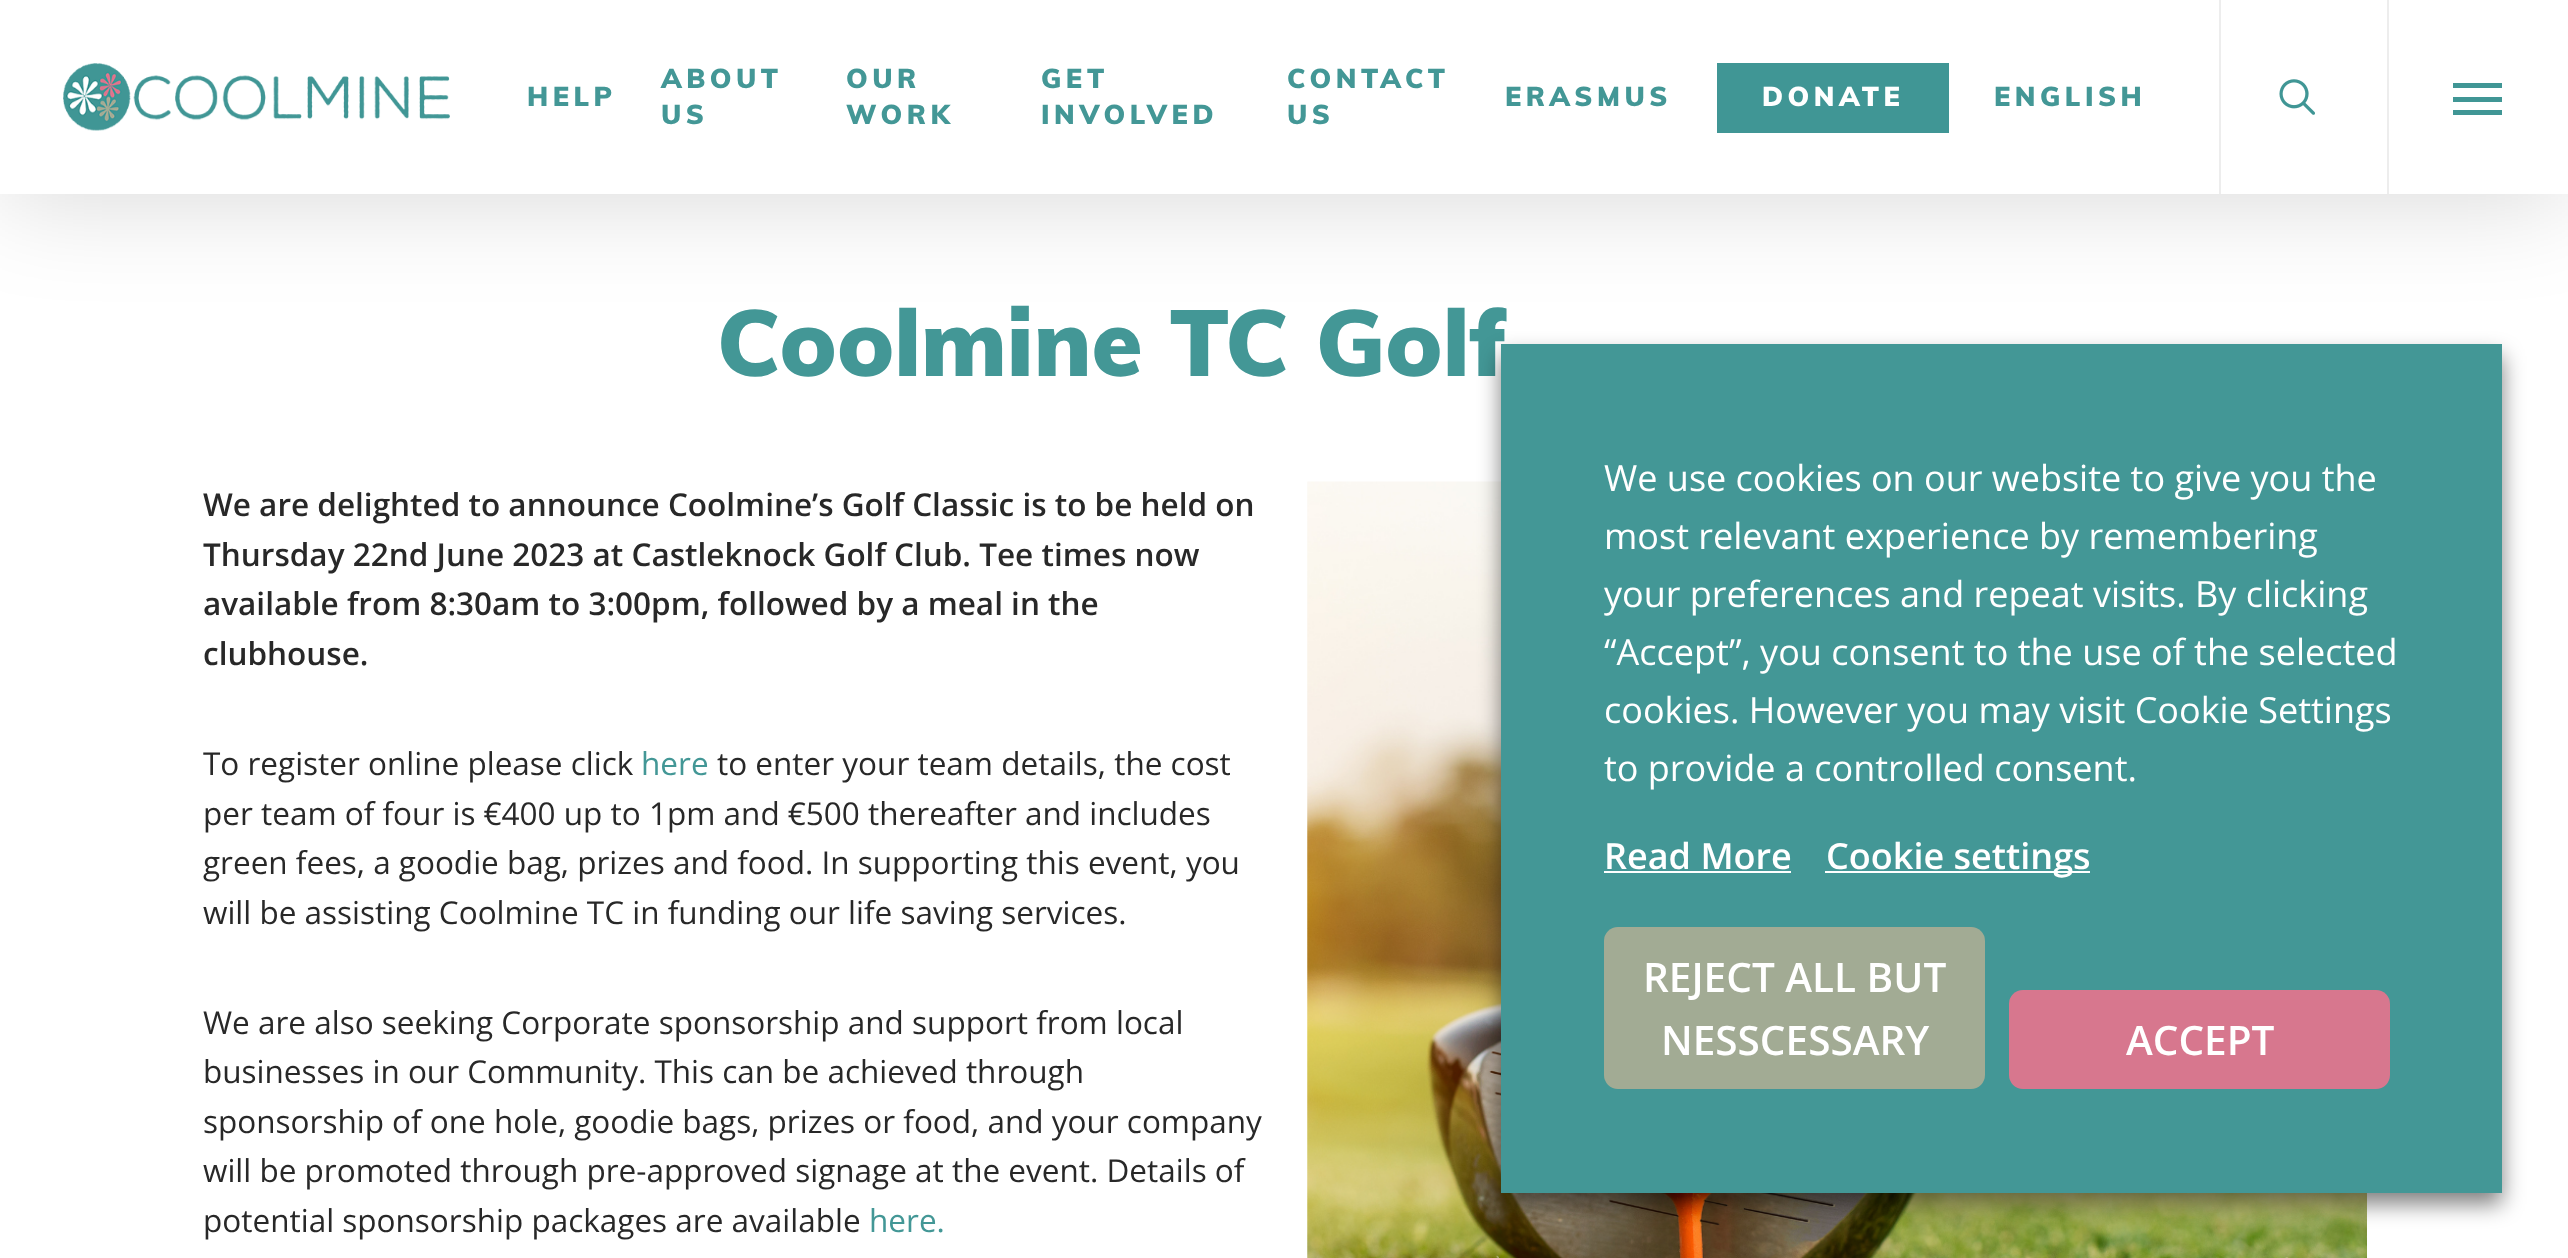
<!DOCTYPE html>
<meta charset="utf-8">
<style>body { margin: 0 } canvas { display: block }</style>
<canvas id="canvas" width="2568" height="1258"></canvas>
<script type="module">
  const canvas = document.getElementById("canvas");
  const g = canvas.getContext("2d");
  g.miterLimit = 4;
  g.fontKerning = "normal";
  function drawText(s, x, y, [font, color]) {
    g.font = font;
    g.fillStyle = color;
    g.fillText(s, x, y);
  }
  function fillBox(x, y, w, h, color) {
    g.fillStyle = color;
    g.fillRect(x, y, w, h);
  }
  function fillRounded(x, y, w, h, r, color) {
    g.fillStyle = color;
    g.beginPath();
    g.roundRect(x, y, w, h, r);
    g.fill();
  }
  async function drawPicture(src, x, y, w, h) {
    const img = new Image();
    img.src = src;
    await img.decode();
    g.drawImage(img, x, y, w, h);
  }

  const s1 = ["900 27px Muli", "#439796"];
  const s2 = ["900 27px Muli", "#FFFFFF"];
  const s3 = ["900 92.75px Muli", "#439796"];
  const s4 = ["600 31.5px Open Sans", "#282828"];
  const s5 = ["31.5px Open Sans", "#282828"];
  const s6 = ["31.5px Open Sans", "#439796"];
  const s7 = ["36px Open Sans", "#FFFFFF"];
  const s8 = ["600 36px Open Sans", "#FFFFFF"];
  const s9 = ["600 40.5px Open Sans", "#FFFFFF"];

  fillBox(0, 0, 2568, 1258, "#FFFFFF");
  g.fillStyle = "rgba(0, 0, 0, 0.15)";
  g.filter = "blur(50.5px)";
  g.beginPath();
  g.rect(0, 7, 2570, 193);
  g.fill();
  g.filter = "none";
  fillBox(0, 0, 2568, 194, "#FFFFFF");
  await drawPicture("pic1.png", 63, 63, 387, 68);
  g.letterSpacing = "4.5px";
  drawText("HELP", 527, 106, s1);
  drawText("ABOUT", 661, 88, s1);
  drawText("US", 661, 124, s1);
  drawText("OUR", 846, 88, s1);
  drawText("WORK", 846, 124, s1);
  drawText("GET", 1041, 88, s1);
  drawText("INVOLVED", 1041, 124, s1);
  drawText("CONTACT", 1287, 88, s1);
  drawText("US", 1287, 124, s1);
  drawText("ERASMUS", 1505, 106, s1);
  fillBox(1717, 63, 232, 70, "#409695");
  drawText("DONATE", 1762, 106, s2);
  drawText("ENGLISH", 1994, 106, s1);
  fillBox(2219, 0, 2, 194, "#EDEDED");
  await drawPicture("pic2.png", 2279, 79, 36, 36);
  fillBox(2387, 0, 2, 194, "#EDEDED");
  fillBox(2453, 83, 49, 5, "#409695");
  fillBox(2453, 110, 49, 5, "#409695");
  fillBox(2453, 97, 49, 5, "#409695");
  g.letterSpacing = "0px";
  drawText("Coolmine TC Golf", 717, 376, s3);
  drawText("We are delighted to announce Coolmine’s Golf Classic is to be held on", 203, 516, s4);
  drawText("Thursday 22nd June 2023 at Castleknock Golf Club. Tee times now", 203, 566, s4);
  drawText("available from 8:30am to 3:00pm, followed by a meal in the", 203, 615, s4);
  drawText("clubhouse.", 203, 665, s4);
  drawText("To register online please click", 203, 775, s5);
  drawText("here", 641, 775, s6);
  drawText("to enter your team details, the cost", 717, 775, s5);
  drawText("per team of four is €400 up to 1pm and €500 thereafter and includes", 203, 825, s5);
  drawText("green fees, a goodie bag, prizes and food. In supporting this event, you", 203, 874, s5);
  drawText("will be assisting Coolmine TC in funding our life saving services.", 203, 924, s5);
  drawText("We are also seeking Corporate sponsorship and support from local", 203, 1034, s5);
  drawText("businesses in our Community. This can be achieved through", 203, 1083, s5);
  drawText("sponsorship of one hole, goodie bags, prizes or food, and your company", 203, 1133, s5);
  drawText("will be promoted through pre-approved signage at the event. Details of", 203, 1182, s5);
  drawText("potential sponsorship packages are available", 203, 1232, s5);
  drawText("here.", 869, 1232, s6);
  await drawPicture("pic3.png", 1307, 481, 1060, 777);
  g.fillStyle = "rgba(0, 0, 0, 0.5)";
  g.filter = "blur(11px)";
  g.beginPath();
  g.rect(1501, 356, 1001, 848);
  g.fill();
  g.filter = "none";
  fillBox(1501, 344, 1001, 849, "#439796");
  drawText("We use cookies on our website to give you the", 1604, 491, s7);
  drawText("most relevant experience by remembering", 1604, 549, s7);
  drawText("your preferences and repeat visits. By clicking", 1604, 607, s7);
  drawText("“Accept”, you consent to the use of the selected", 1604, 665, s7);
  drawText("cookies. However you may visit Cookie Settings", 1604, 723, s7);
  drawText("to provide a controlled consent.", 1604, 781, s7);
  drawText("Read More", 1604, 869, s8);
  fillBox(1604, 871, 187, 2, "#FFFFFF");
  fillBox(1825, 871, 265, 2, "#FFFFFF");
  drawText("Cookie settings", 1826, 869, s8);
  fillRounded(1604, 927, 381, 162, 14, "#A2AB94");
  drawText("REJECT ALL BUT", 1643, 992, s9);
  drawText("NESSCESSARY", 1661, 1055, s9);
  fillRounded(2009, 990, 381, 99, 14, "#D7778E");
  drawText("ACCEPT", 2126, 1055, s9);
</script>
